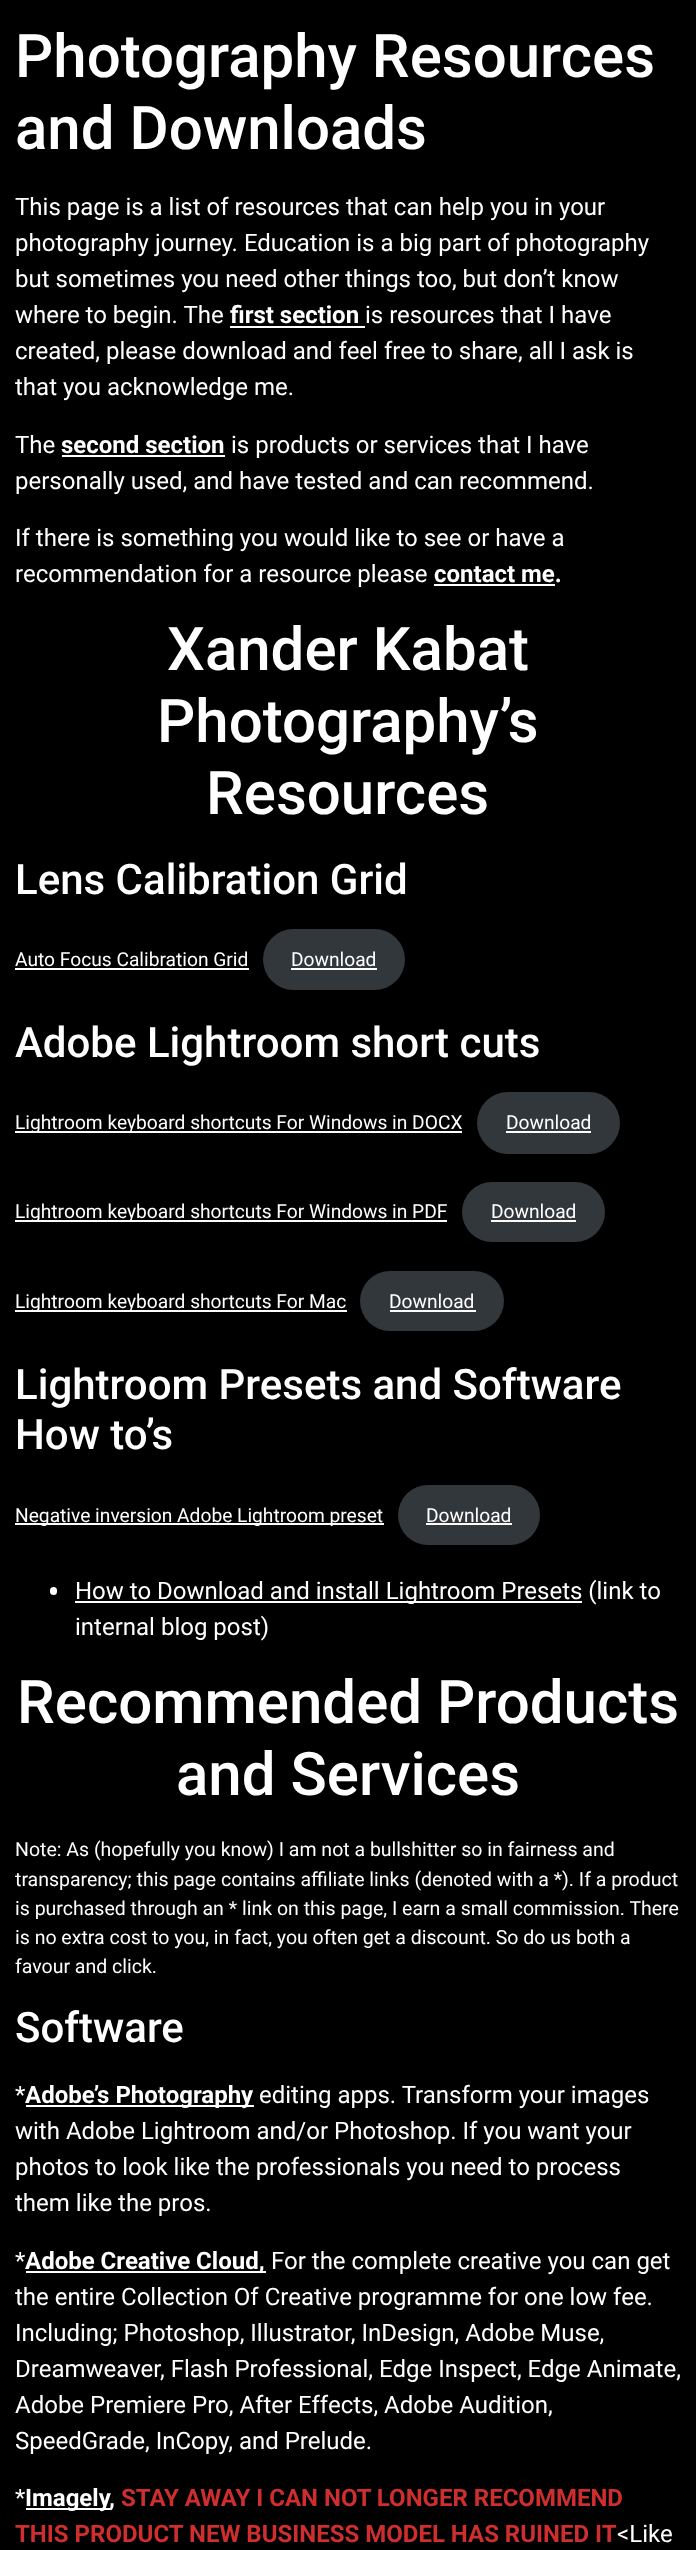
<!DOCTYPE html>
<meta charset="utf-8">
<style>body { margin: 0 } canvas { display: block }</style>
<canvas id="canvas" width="696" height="2550"></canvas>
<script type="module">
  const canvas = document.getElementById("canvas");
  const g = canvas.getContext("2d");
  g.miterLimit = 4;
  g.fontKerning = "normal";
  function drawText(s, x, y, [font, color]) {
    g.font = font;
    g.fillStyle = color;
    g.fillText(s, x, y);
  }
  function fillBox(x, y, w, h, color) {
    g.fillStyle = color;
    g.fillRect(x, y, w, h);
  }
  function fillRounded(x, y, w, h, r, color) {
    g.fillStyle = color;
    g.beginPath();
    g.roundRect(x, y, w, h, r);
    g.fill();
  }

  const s1 = ["500 60px Roboto", "#FFFFFF"];
  const s2 = ["24px Roboto", "#FFFFFF"];
  const s3 = ["bold 24px Roboto", "#FFFFFF"];
  const s4 = ["500 42px Roboto", "#FFFFFF"];
  const s5 = ["19.2px Roboto", "#FFFFFF"];
  const s6 = ["19.5px Roboto", "#FFFFFF"];
  const s7 = ["bold 24px Roboto", "#CF2E2E"];

  fillBox(0, 0, 696, 2550, "#000000");
  drawText("Photography Resources", 15, 77, s1);
  drawText("and Downloads", 15, 149, s1);
  drawText("This page is a list of resources that can help you in your", 15, 215, s2);
  drawText("photography journey. Education is a big part of photography", 15, 251, s2);
  drawText("but sometimes you need other things too, but don’t know", 15, 287, s2);
  drawText("where to begin. The", 15, 323, s2);
  drawText("first section", 230, 323, s3);
  fillBox(230, 326, 135, 2, "#FFFFFF");
  drawText("is resources that I have", 365, 323, s2);
  drawText("created, please download and feel free to share, all I ask is", 15, 359, s2);
  drawText("that you acknowledge me.", 15, 395, s2);
  drawText("The", 15, 453, s2);
  drawText("second section", 61, 453, s3);
  fillBox(62, 455, 163, 2, "#FFFFFF");
  drawText("is products or services that I have", 231, 453, s2);
  drawText("personally used, and have tested and can recommend.", 15, 489, s2);
  drawText("If there is something you would like to see or have a", 15, 546, s2);
  drawText("recommendation for a resource please", 15, 582, s2);
  drawText("contact me.", 434, 582, s3);
  fillBox(434, 584, 121, 2, "#FFFFFF");
  drawText("Xander Kabat", 167, 670, s1);
  drawText("Photography’s", 157, 742, s1);
  drawText("Resources", 206, 814, s1);
  drawText("Lens Calibration Grid", 15, 894, s4);
  drawText("Auto Focus Calibration Grid", 15, 966, s5);
  fillBox(15, 968, 234, 2, "#FFFFFF");
  fillRounded(263, 929, 142, 61, 30.5, "#32373C");
  drawText("Download", 291, 966, s5);
  fillBox(291, 968, 86, 2, "#FFFFFF");
  drawText("Adobe Lightroom short cuts", 15, 1057, s4);
  fillBox(15, 1131, 447, 2, "#FFFFFF");
  drawText("Lightroom keyboard shortcuts For Windows in DOCX", 15, 1129, s5);
  fillRounded(477, 1092, 143, 62, 31, "#32373C");
  drawText("Download", 506, 1129, s5);
  fillBox(506, 1131, 85, 2, "#FFFFFF");
  fillBox(15, 1220, 432, 2, "#FFFFFF");
  drawText("Lightroom keyboard shortcuts For Windows in PDF", 15, 1218, s5);
  fillRounded(462, 1182, 143, 60, 30, "#32373C");
  drawText("Download", 491, 1218, s5);
  fillBox(491, 1220, 85, 2, "#FFFFFF");
  fillBox(15, 1310, 332, 2, "#FFFFFF");
  drawText("Lightroom keyboard shortcuts For Mac", 15, 1308, s5);
  fillRounded(360, 1271, 144, 60, 30, "#32373C");
  drawText("Download", 389, 1308, s5);
  fillBox(390, 1310, 86, 2, "#FFFFFF");
  drawText("Lightroom Presets and Software", 15, 1399, s4);
  drawText("How to’s", 15, 1449, s4);
  fillBox(15, 1523, 369, 2, "#FFFFFF");
  drawText("Negative inversion Adobe Lightroom preset", 15, 1522, s5);
  fillRounded(398, 1485, 142, 60, 30, "#32373C");
  drawText("Download", 426, 1522, s5);
  fillBox(426, 1523, 86, 2, "#FFFFFF");
  fillRounded(50, 1587, 7, 8, 3.5, "#FFFFFF");
  fillBox(75, 1601, 507, 2, "#FFFFFF");
  drawText("How to Download and install Lightroom Presets (link to", 75, 1599, s2);
  drawText("internal blog post)", 75, 1635, s2);
  drawText("Recommended Products", 17, 1723, s1);
  drawText("and Services", 176, 1795, s1);
  drawText("Note: As (hopefully you know) I am not a bullshitter so in fairness and", 15, 1856, s6);
  drawText("transparency; this page contains affiliate links (denoted with a *). If a product", 15, 1886, s6);
  drawText("is purchased through an * link on this page, I earn a small commission. There", 15, 1915, s6);
  drawText("is no extra cost to you, in fact, you often get a discount. So do us both a", 15, 1944, s6);
  drawText("favour and click.", 15, 1973, s6);
  drawText("Software", 15, 2042, s4);
  drawText("*", 15, 2103, s2);
  fillBox(26, 2105, 228, 2, "#FFFFFF");
  drawText("Adobe’s Photography", 25, 2103, s3);
  drawText("editing apps. Transform your images", 259, 2103, s2);
  drawText("with Adobe Lightroom and/or Photoshop. If you want your", 15, 2139, s2);
  drawText("photos to look like the professionals you need to process", 15, 2175, s2);
  drawText("them like the pros.", 15, 2211, s2);
  drawText("*", 15, 2269, s2);
  fillBox(26, 2271, 240, 2, "#FFFFFF");
  drawText("Adobe Creative Cloud,", 25, 2269, s3);
  drawText("For the complete creative you can get", 271, 2269, s2);
  drawText("the entire Collection Of Creative programme for one low fee.", 15, 2305, s2);
  drawText("Including; Photoshop, Illustrator, InDesign, Adobe Muse,", 15, 2341, s2);
  drawText("Dreamweaver, Flash Professional, Edge Inspect, Edge Animate,", 15, 2377, s2);
  drawText("Adobe Premiere Pro, After Effects, Adobe Audition,", 15, 2413, s2);
  drawText("SpeedGrade, InCopy, and Prelude.", 15, 2449, s2);
  drawText("*", 15, 2506, s2);
  fillBox(26, 2508, 84, 2, "#FFFFFF");
  drawText("Imagely", 25, 2506, s3);
  drawText("STAY AWAY I CAN NOT LONGER RECOMMEND", 121, 2506, s7);
  drawText(",", 109, 2506, s3);
  drawText("THIS PRODUCT NEW BUSINESS MODEL HAS RUINED IT", 15, 2542, s7);
  drawText("<Like", 617, 2542, s2);
</script>
